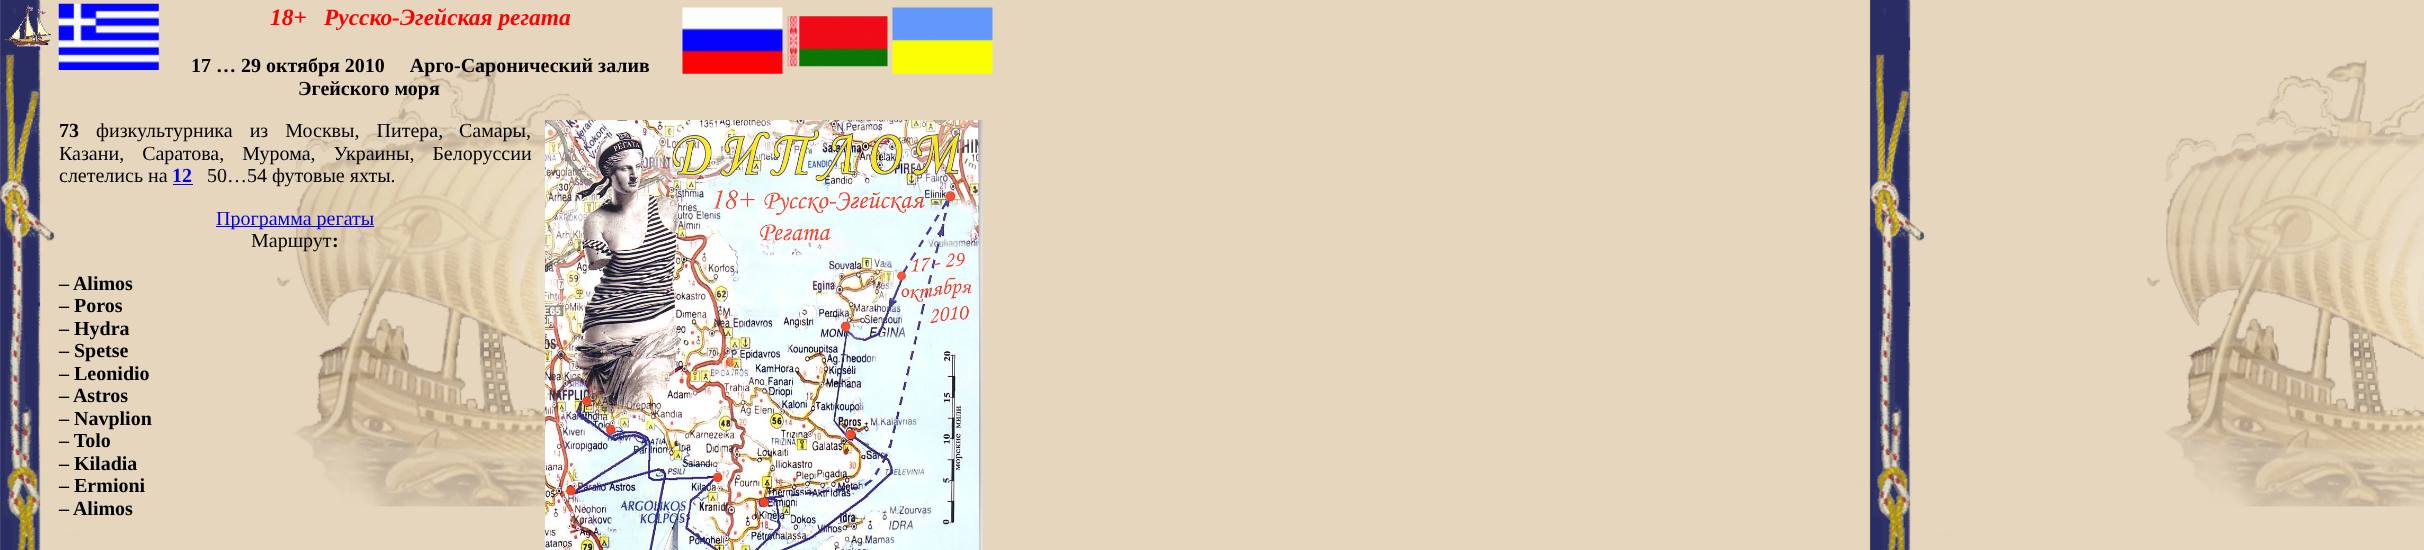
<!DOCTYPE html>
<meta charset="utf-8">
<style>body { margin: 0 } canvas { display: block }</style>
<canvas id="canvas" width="2424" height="550"></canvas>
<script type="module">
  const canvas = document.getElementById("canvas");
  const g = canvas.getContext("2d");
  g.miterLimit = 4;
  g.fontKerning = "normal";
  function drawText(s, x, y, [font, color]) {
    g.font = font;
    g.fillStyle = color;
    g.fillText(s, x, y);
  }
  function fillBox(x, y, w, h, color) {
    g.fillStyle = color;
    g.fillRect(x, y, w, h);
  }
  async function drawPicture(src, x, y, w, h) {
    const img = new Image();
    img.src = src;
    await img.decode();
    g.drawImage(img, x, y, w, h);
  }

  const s1 = ["italic bold 23.4px Liberation Serif", "#FF0000"];
  const s2 = ["bold 20px Liberation Serif", "#000000"];
  const s3 = ["20px Liberation Serif", "#000000"];
  const s4 = ["bold 20px Liberation Serif", "#0000EE"];
  const s5 = ["20px Liberation Serif", "#0000EE"];

  fillBox(0, 0, 2424, 550, "#FFFFFF");
  await drawPicture("pic1.png", 0, 0, 2424, 550);
  await drawPicture("pic2.png", 3, 5, 50, 42);
  await drawPicture("pic3.png", 58, 3, 101, 67);
  drawText("18+", 270, 25, s1);
  drawText("Русско-Эгейская регата", 324, 25, s1);
  await drawPicture("pic4.png", 682, 7, 101, 67);
  await drawPicture("pic5.png", 787, 16, 101, 51);
  await drawPicture("pic6.png", 892, 7, 101, 67);
  drawText("17 … 29 октября 2010     Арго-Саронический залив", 191, 72, s2);
  drawText("Эгейского моря", 298, 95, s2);
  drawText("73", 59, 137, s2);
  g.wordSpacing = "12px";
  drawText("физкультурника из Москвы, Питера,", 96, 137, s3);
  g.wordSpacing = "0px";
  drawText("Самары,", 459, 137, s3);
  await drawPicture("pic7.png", 545, 120, 438, 430);
  g.wordSpacing = "13px";
  drawText("Казани, Саратова, Мурома, Украины, Белоруссии", 59, 160, s3);
  g.wordSpacing = "0px";
  drawText("слетелись на", 59, 182, s3);
  drawText("12", 172, 182, s4);
  fillBox(173, 184, 20, 1, "#0000EE");
  drawText("50…54 футовые яхты.", 207, 182, s3);
  fillBox(216, 226, 158, 1, "#0000EE");
  drawText("Программа регаты", 216, 225, s5);
  drawText("Маршрут", 251, 247, s3);
  drawText(":", 332, 247, s2);
  drawText("– Alimos", 59, 290, s2);
  drawText("– Poros", 59, 312, s2);
  drawText("– Hydra", 59, 335, s2);
  drawText("– Spetse", 59, 357, s2);
  drawText("– Leonidio", 59, 380, s2);
  drawText("– Astros", 59, 402, s2);
  drawText("– Navplion", 59, 425, s2);
  drawText("– Tolo", 59, 447, s2);
  drawText("– Kiladia", 59, 470, s2);
  drawText("– Ermioni", 59, 492, s2);
  drawText("– Alimos", 59, 515, s2);
</script>
